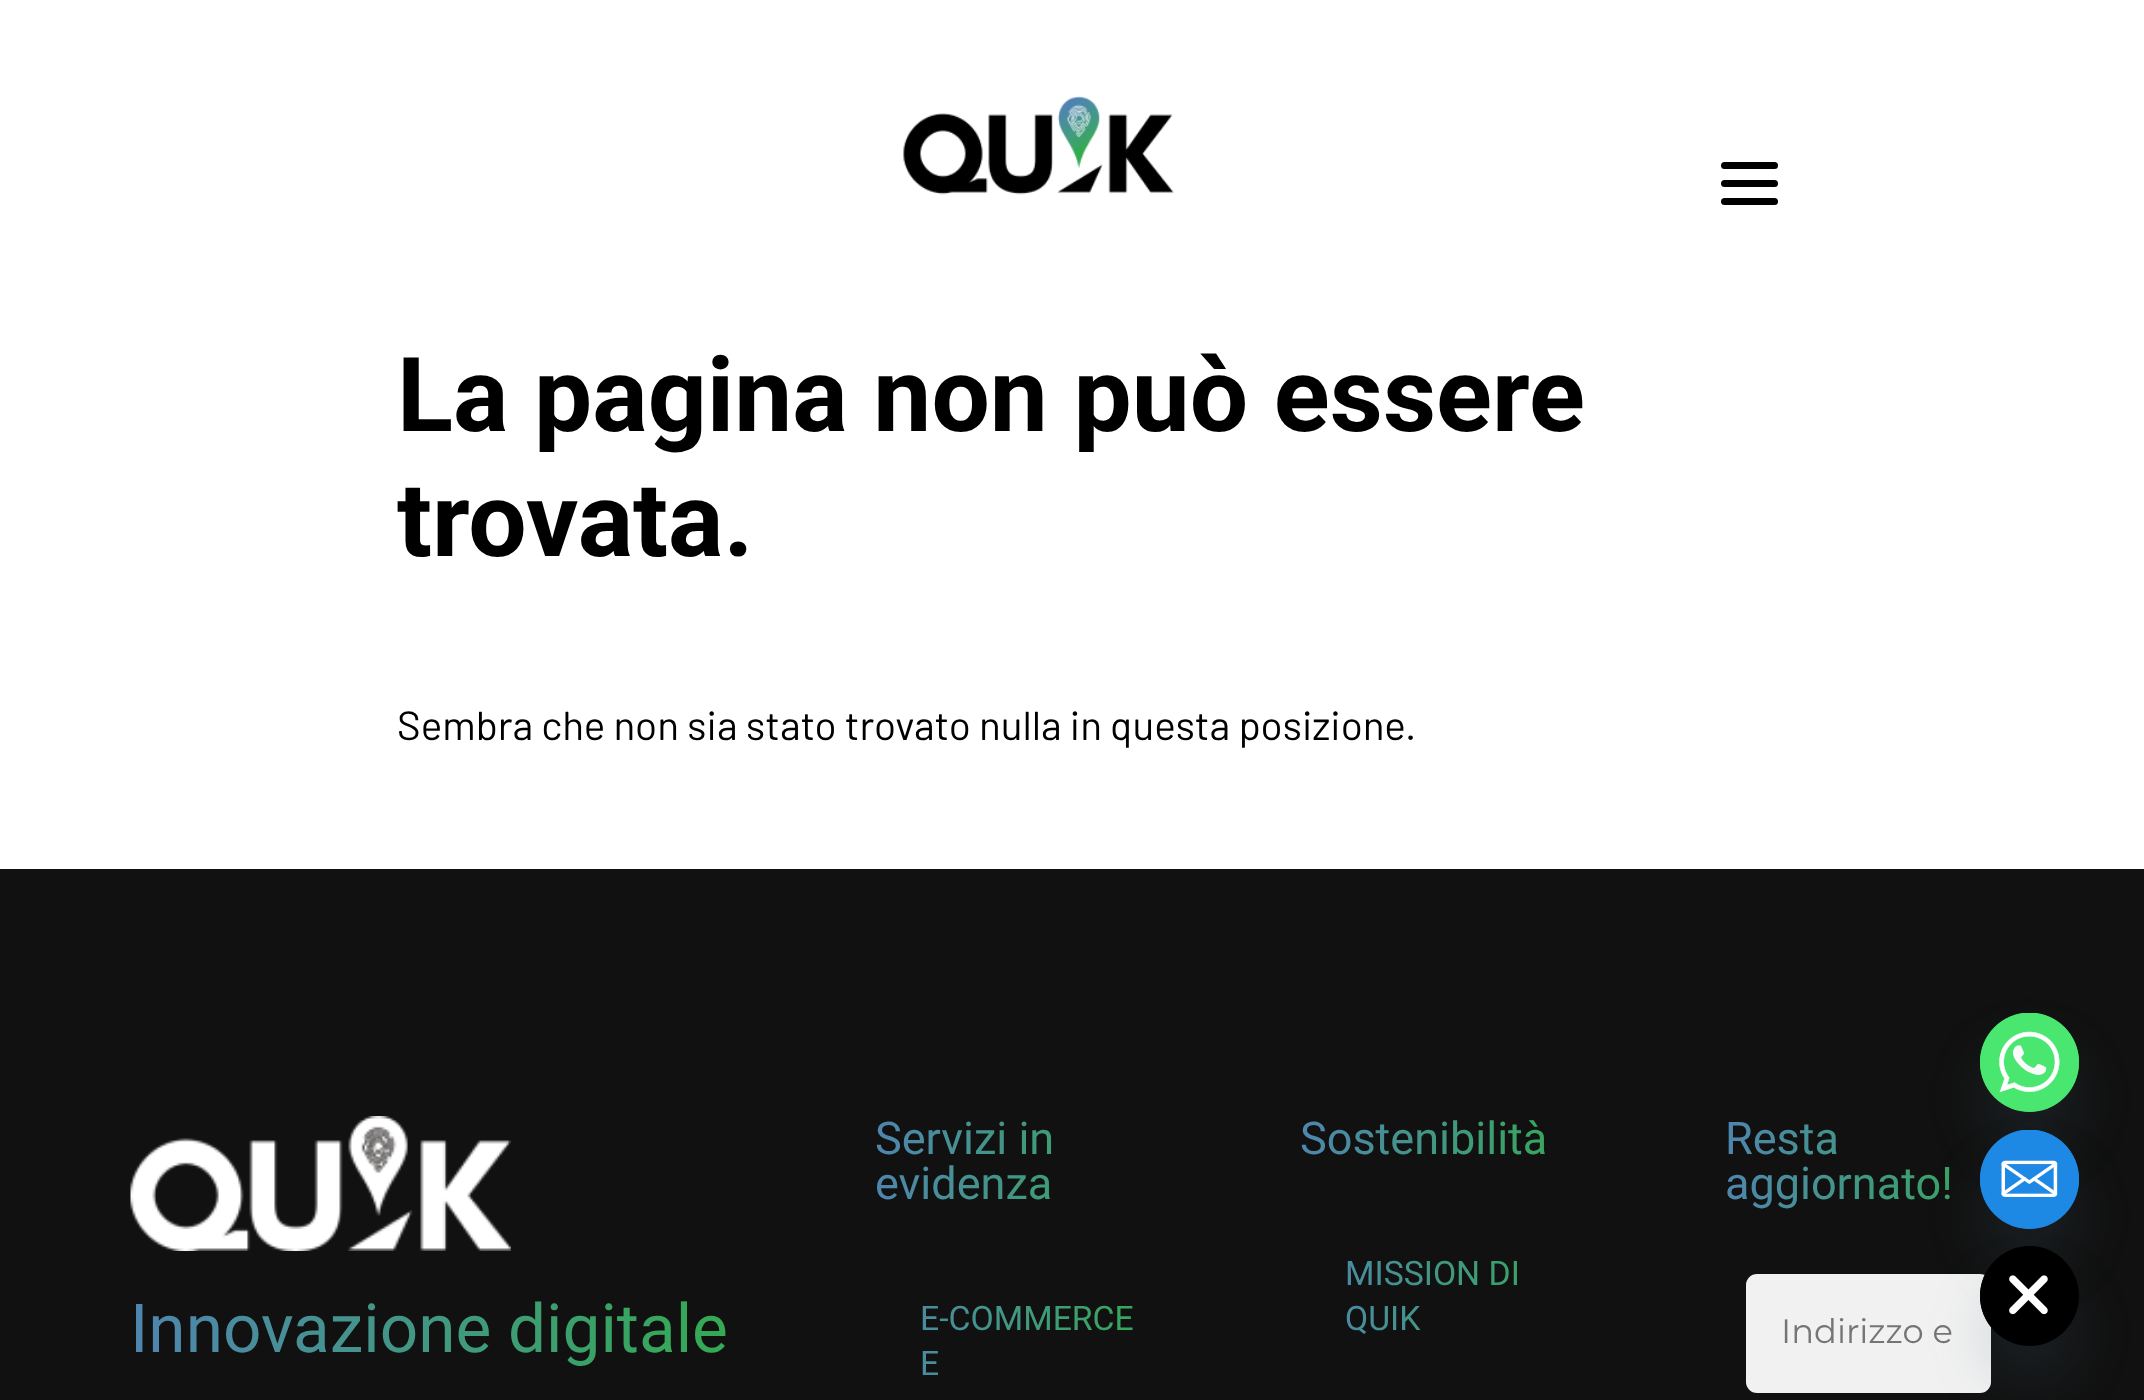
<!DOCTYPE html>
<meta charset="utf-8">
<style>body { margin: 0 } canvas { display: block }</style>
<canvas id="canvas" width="2144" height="1400"></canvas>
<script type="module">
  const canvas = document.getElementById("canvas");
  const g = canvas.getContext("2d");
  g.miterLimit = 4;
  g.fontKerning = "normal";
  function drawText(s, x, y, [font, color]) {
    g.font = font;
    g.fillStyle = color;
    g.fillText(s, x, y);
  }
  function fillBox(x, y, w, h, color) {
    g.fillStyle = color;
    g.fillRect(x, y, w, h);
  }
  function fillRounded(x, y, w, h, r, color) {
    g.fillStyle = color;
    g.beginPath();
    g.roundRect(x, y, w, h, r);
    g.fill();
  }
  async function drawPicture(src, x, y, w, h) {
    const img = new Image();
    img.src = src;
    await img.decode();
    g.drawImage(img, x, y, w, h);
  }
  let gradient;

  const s1 = ["bold 103.5px Roboto", "#000000"];
  const s2 = ["40.5px Barlow", "#000000"];
  const s3 = ["33.75px Montserrat", "#757575"];

  fillBox(0, 0, 2144, 1400, "#FFFFFF");
  await drawPicture("pic1.png", 903, 96, 271, 99);
  fillRounded(1721, 180, 57, 7, 3.5, "#000000");
  fillRounded(1721, 162, 57, 7, 3.5, "#000000");
  fillRounded(1721, 198, 57, 7, 3.5, "#000000");
  drawText("La pagina non può essere", 397, 431, s1);
  drawText("trovata.", 397, 556, s1);
  drawText("Sembra che non sia stato trovato nulla in questa posizione.", 397, 740, s2);
  fillBox(0, 869, 2144, 531, "#111111");
  await drawPicture("pic2.png", 130, 1116, 381, 135);
  g.font = "67.5px Roboto";
  gradient = g.createLinearGradient(130, 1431, 740, 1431);
  gradient.addColorStop(0, "#4F85AF");
  gradient.addColorStop(1, "#33AB51");
  g.fillStyle = gradient;
  g.fillText("Innovazione digitale", 130, 1352);
  g.font = "45px Roboto";
  gradient = g.createLinearGradient(875, 1161, 1165, 1161);
  gradient.addColorStop(0, "#4F85AF");
  gradient.addColorStop(1, "#33AB51");
  g.fillStyle = gradient;
  g.fillText("Servizi in", 875, 1154);
  g.fillText("evidenza", 875, 1199);
  g.font = "33.75px Roboto";
  gradient = g.createLinearGradient(875, 1364, 1165, 1364);
  gradient.addColorStop(0, "#4F85AF");
  gradient.addColorStop(1, "#33AB51");
  g.fillStyle = gradient;
  g.fillText("E-COMMERCE", 920, 1330);
  g.fillText("E", 920, 1375);
  g.font = "45px Roboto";
  gradient = g.createLinearGradient(1300, 1139, 1590, 1139);
  gradient.addColorStop(0, "#4F85AF");
  gradient.addColorStop(1, "#33AB51");
  g.fillStyle = gradient;
  g.fillText("Sostenibilità", 1300, 1154);
  g.font = "33.75px Roboto";
  gradient = g.createLinearGradient(1300, 1296, 1590, 1296);
  gradient.addColorStop(0, "#4F85AF");
  gradient.addColorStop(1, "#33AB51");
  g.fillStyle = gradient;
  g.fillText("MISSION DI", 1345, 1285);
  g.fillText("QUIK", 1345, 1330);
  g.font = "45px Roboto";
  gradient = g.createLinearGradient(1725, 1161, 2015, 1161);
  gradient.addColorStop(0, "#4F85AF");
  gradient.addColorStop(1, "#33AB51");
  g.fillStyle = gradient;
  g.fillText("Resta", 1725, 1154);
  g.fillText("aggiornato!", 1725, 1199);
  fillRounded(1746, 1274, 245, 119, 11, "#F1F1F1");
  drawText("Indirizzo e", 1781, 1343, s3);
  g.fillStyle = "rgba(73, 104, 126, 0.16)";
  g.filter = "blur(27px)";
  g.beginPath();
  g.roundRect(1980, 1049, 99, 99, 49.5);
  g.fill();
  g.filter = "none";
  g.fillStyle = "#49E670";
  g.beginPath();
  g.arc(2029.5, 1062.5, 49.5, 0, Math.PI * 2);
  g.fill();
  await drawPicture("pic3.png", 1980, 1013, 99, 99);
  g.fillStyle = "rgba(73, 104, 126, 0.16)";
  g.filter = "blur(27px)";
  g.beginPath();
  g.roundRect(1980, 1166, 99, 99, 49.5);
  g.fill();
  g.filter = "none";
  g.fillStyle = "#1E88E5";
  g.beginPath();
  g.arc(2029.5, 1179.5, 49.5, 0, Math.PI * 2);
  g.fill();
  await drawPicture("pic4.png", 1980, 1130, 99, 99);
  g.fillStyle = "rgba(73, 104, 126, 0.16)";
  g.filter = "blur(27px)";
  g.beginPath();
  g.roundRect(1980, 1283, 99, 99, 49.5);
  g.fill();
  g.filter = "none";
  g.fillStyle = "#000000";
  g.beginPath();
  g.moveTo(2030, 1346);
  g.bezierCurveTo(2002, 1346, 1980, 1323, 1980, 1296);
  g.bezierCurveTo(1980, 1269, 2002, 1246, 2030, 1246);
  g.bezierCurveTo(2057, 1246, 2079, 1269, 2079, 1296);
  g.bezierCurveTo(2079, 1323, 2057, 1346, 2030, 1346);
  g.closePath();
  g.fill();
  await drawPicture("pic5.png", 1980, 1275, 68, 52);
</script>
